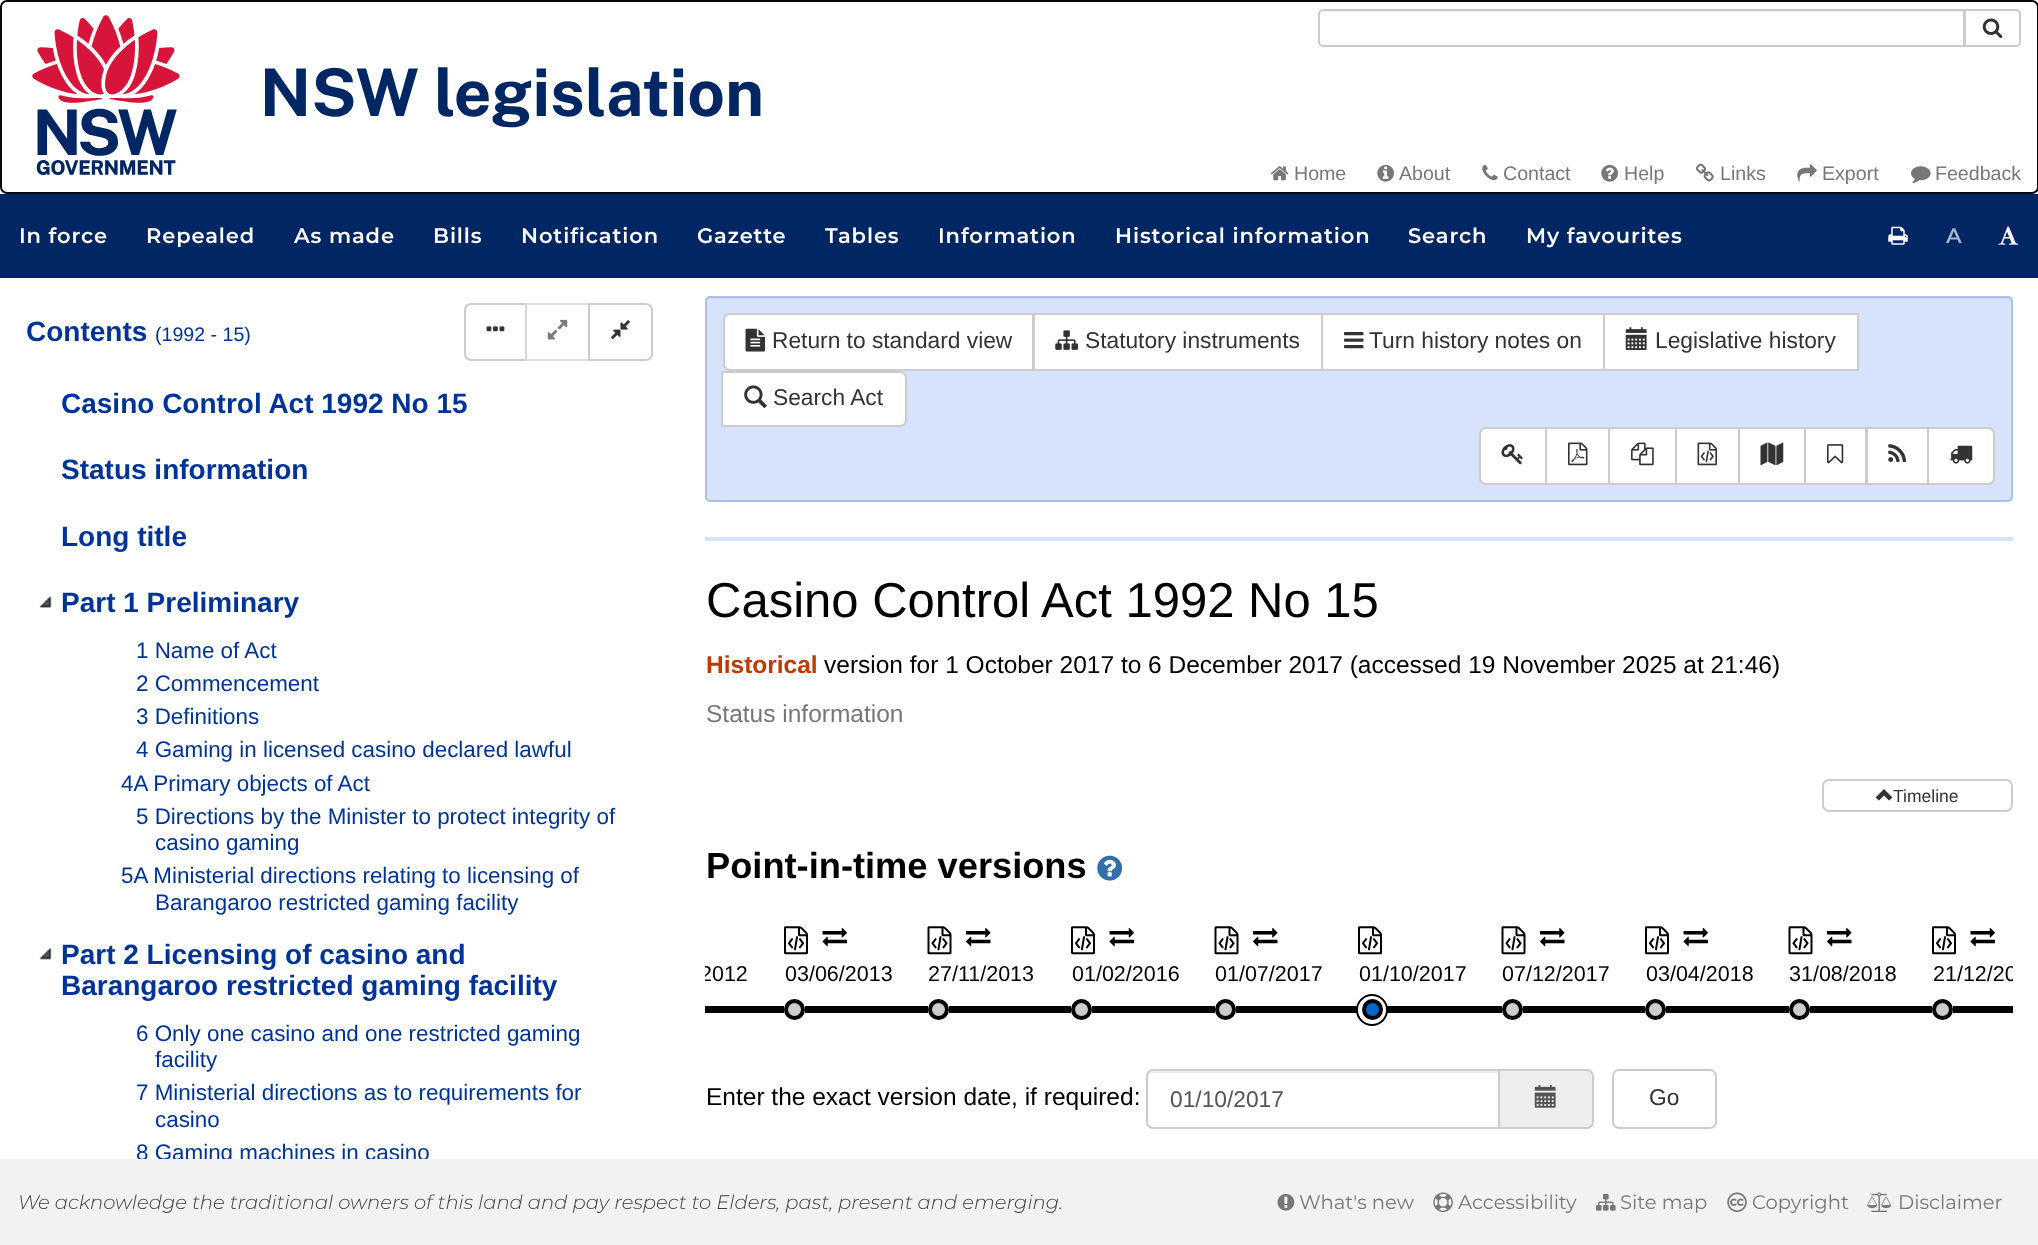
<!DOCTYPE html>
<meta charset="utf-8">
<style>body { margin: 0 } canvas { display: block }</style>
<canvas id="canvas" width="2038" height="1245"></canvas>
<script type="module">
  const canvas = document.getElementById("canvas");
  const g = canvas.getContext("2d");
  g.miterLimit = 4;
  g.fontKerning = "normal";
  function drawText(s, x, y, [font, color]) {
    g.font = font;
    g.fillStyle = color;
    g.fillText(s, x, y);
  }
  function fillBox(x, y, w, h, color) {
    g.fillStyle = color;
    g.fillRect(x, y, w, h);
  }
  function fillRounded(x, y, w, h, r, color) {
    g.fillStyle = color;
    g.beginPath();
    g.roundRect(x, y, w, h, r);
    g.fill();
  }
  async function drawPicture(src, x, y, w, h) {
    const img = new Image();
    img.src = src;
    await img.decode();
    g.drawImage(img, x, y, w, h);
  }

  const s1 = ["19.6px Liberation Sans", "#777777"];
  const s2 = ["600 21px Montserrat", "#FFFFFF"];
  const s3 = ["600 21px Montserrat", "#A6B3C9"];
  const s4 = ["bold 28px Liberation Sans", "#003399"];
  const s5 = ["19.6px Liberation Sans", "#003399"];
  const s6 = ["22.4px Liberation Sans", "#003399"];
  const s7 = ["22.75px Liberation Sans", "#333333"];
  const s8 = ["49px Liberation Sans", "#000000"];
  const s9 = ["bold 24.5px Liberation Sans", "#C03A00"];
  const s10 = ["24.5px Liberation Sans", "#000000"];
  const s11 = ["24.5px Liberation Sans", "#777777"];
  const s12 = ["17.5px Liberation Sans", "#333333"];
  const s13 = ["bold 36.25px Liberation Sans", "#000000"];
  const s14 = ["21.5px Liberation Sans", "#000000"];
  const s15 = ["22.75px Liberation Sans", "#555555"];
  const s16 = ["italic 300 19.6px Montserrat", "#3D3D3D"];
  const s17 = ["19.6px Montserrat", "#777777"];

  fillBox(0, 0, 2038, 1245, "#FFFFFF");
  g.beginPath();
  g.roundRect(1, 1, 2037, 192, 6);
  g.strokeStyle = "#080808";
  g.lineWidth = 2;
  g.stroke();
  await drawPicture("pic1.png", 32, 15, 729, 160);
  g.beginPath();
  g.roundRect(1965, 10, 55, 36, [0, 4, 4, 0]);
  g.strokeStyle = "#CCCCCC";
  g.stroke();
  g.beginPath();
  g.roundRect(1318, 9, 647, 38, [5, 0, 0, 5]);
  g.fill();
  g.fillStyle = "#ECECEC";
  g.beginPath();
  g.moveTo(1323, 12);
  g.lineTo(1964, 12);
  g.lineTo(1964, 11);
  g.lineTo(1324, 11);
  g.bezierCurveTo(1321, 11, 1320, 13, 1320, 16);
  g.bezierCurveTo(1320, 14, 1321, 12, 1323, 12);
  g.closePath();
  g.fill();
  g.beginPath();
  g.roundRect(1319, 10, 645, 36, [4, 0, 0, 4]);
  g.stroke();
  await drawPicture("pic2.png", 1982, 18, 21, 20);
  await drawPicture("pic3.png", 1270, 166, 19, 15);
  drawText("Home", 1294, 180, s1);
  await drawPicture("pic4.png", 1377, 164, 17, 18);
  drawText("About", 1399, 180, s1);
  await drawPicture("pic5.png", 1482, 164, 16, 17);
  drawText("Contact", 1503, 180, s1);
  await drawPicture("pic6.png", 1601, 164, 17, 18);
  drawText("Help", 1624, 180, s1);
  await drawPicture("pic7.png", 1695, 163, 19, 19);
  drawText("Links", 1720, 180, s1);
  await drawPicture("pic8.png", 1797, 164, 20, 18);
  drawText("Export", 1822, 180, s1);
  await drawPicture("pic9.png", 1911, 166, 20, 17);
  drawText("Feedback", 1935, 180, s1);
  fillBox(0, 194, 2038, 84, "#002664");
  g.letterSpacing = "0.9px";
  drawText("In force", 19, 243, s2);
  drawText("Repealed", 146, 243, s2);
  drawText("As made", 294, 243, s2);
  drawText("Bills", 433, 243, s2);
  drawText("Notification", 521, 243, s2);
  drawText("Gazette", 697, 243, s2);
  drawText("Tables", 825, 243, s2);
  drawText("Information", 938, 243, s2);
  drawText("Historical information", 1115, 243, s2);
  drawText("Search", 1408, 243, s2);
  drawText("My favourites", 1526, 243, s2);
  await drawPicture("pic10.png", 1888, 226, 20, 19);
  drawText("A", 1946, 243, s3);
  await drawPicture("pic11.png", 1998, 226, 20, 19);
  g.letterSpacing = "0px";
  drawText("Contents", 26, 341, s4);
  drawText("(1992 - 15)", 155, 341, s5);
  g.beginPath();
  g.roundRect(465, 304, 61, 56, [6, 0, 0, 6]);
  g.stroke();
  await drawPicture("pic12.png", 486, 326, 19, 6);
  fillBox(525, 303, 2, 58, "rgba(255, 255, 255, 0.65)");
  g.strokeStyle = "rgba(204, 204, 204, 0.65)";
  g.strokeRect(526, 304, 63, 56);
  await drawPicture("pic13.png", 547, 319, 21, 21);
  g.fillStyle = "#FFFFFF";
  g.beginPath();
  g.roundRect(589, 304, 63, 56, [0, 6, 6, 0]);
  g.fill();
  g.strokeStyle = "#CCCCCC";
  g.stroke();
  await drawPicture("pic14.png", 611, 320, 19, 20);
  drawText("Casino Control Act 1992 No 15", 61, 413, s4);
  drawText("Status information", 61, 479, s4);
  drawText("Long title", 61, 546, s4);
  await drawPicture("pic15.png", 39, 596, 13, 12);
  drawText("Part 1 Preliminary", 61, 612, s4);
  drawText("1 Name of Act", 136, 658, s6);
  drawText("2 Commencement", 136, 691, s6);
  drawText("3 Definitions", 136, 724, s6);
  drawText("4 Gaming in licensed casino declared lawful", 136, 757, s6);
  drawText("4A Primary objects of Act", 121, 791, s6);
  drawText("5 Directions by the Minister to protect integrity of", 136, 824, s6);
  drawText("casino gaming", 155, 850, s6);
  drawText("5A Ministerial directions relating to licensing of", 121, 883, s6);
  drawText("Barangaroo restricted gaming facility", 155, 910, s6);
  await drawPicture("pic16.png", 39, 948, 13, 12);
  drawText("Part 2 Licensing of casino and", 61, 964, s4);
  drawText("Barangaroo restricted gaming facility", 61, 995, s4);
  drawText("6 Only one casino and one restricted gaming", 136, 1041, s6);
  drawText("facility", 155, 1067, s6);
  drawText("7 Ministerial directions as to requirements for", 136, 1100, s6);
  drawText("casino", 155, 1127, s6);
  g.save();
  g.beginPath();
  g.rect(0, 278, 679, 881);
  g.clip();
  drawText("8 Gaming machines in casino", 136, 1160, s6);
  g.restore();
  fillRounded(705, 296, 1308, 206, 5, "#D7E2FC");
  g.fillStyle = "#CCD7EF";
  g.beginPath();
  g.moveTo(710, 299);
  g.lineTo(2007, 299);
  g.bezierCurveTo(2009, 299, 2011, 301, 2011, 303);
  g.lineTo(2011, 302);
  g.bezierCurveTo(2011, 300, 2009, 298, 2007, 298);
  g.lineTo(711, 298);
  g.bezierCurveTo(709, 298, 707, 300, 707, 302);
  g.lineTo(707, 303);
  g.bezierCurveTo(707, 301, 709, 299, 710, 299);
  g.closePath();
  g.fill();
  g.beginPath();
  g.roundRect(706, 297, 1306, 204, 4);
  g.strokeStyle = "#AEBFE9";
  g.stroke();
  g.fillStyle = "#FFFFFF";
  g.beginPath();
  g.roundRect(724, 314, 309, 56, [6, 0, 0, 6]);
  g.fill();
  g.strokeStyle = "#CCCCCC";
  g.stroke();
  await drawPicture("pic17.png", 745, 328, 20, 24);
  drawText("Return to standard view", 772, 348, s7);
  g.fillStyle = "#FFFFFF";
  g.beginPath();
  g.rect(1034, 314, 288, 56);
  g.fill();
  g.stroke();
  await drawPicture("pic18.png", 1055, 330, 23, 20);
  drawText("Statutory instruments", 1085, 348, s7);
  g.fillStyle = "#FFFFFF";
  g.beginPath();
  g.rect(1322, 314, 282, 56);
  g.fill();
  g.stroke();
  await drawPicture("pic19.png", 1344, 332, 20, 17);
  drawText("Turn history notes on", 1369, 348, s7);
  g.fillStyle = "#FFFFFF";
  g.beginPath();
  g.rect(1604, 314, 254, 56);
  g.fill();
  g.stroke();
  await drawPicture("pic20.png", 1625, 327, 22, 23);
  drawText("Legislative history", 1655, 348, s7);
  g.fillStyle = "#FFFFFF";
  g.beginPath();
  g.roundRect(722, 372, 184, 54, [0, 6, 6, 0]);
  g.fill();
  g.stroke();
  await drawPicture("pic21.png", 744, 385, 23, 24);
  drawText("Search Act", 773, 405, s7);
  g.fillStyle = "#FFFFFF";
  g.beginPath();
  g.roundRect(1480, 428, 66, 56, [6, 0, 0, 6]);
  g.fill();
  g.stroke();
  await drawPicture("pic22.png", 1501, 444, 22, 21);
  g.beginPath();
  g.rect(1546, 428, 63, 56);
  g.fill();
  g.stroke();
  await drawPicture("pic23.png", 1568, 442, 20, 24);
  g.beginPath();
  g.rect(1609, 428, 67, 56);
  g.fill();
  g.stroke();
  await drawPicture("pic24.png", 1631, 442, 23, 24);
  g.beginPath();
  g.rect(1676, 428, 63, 56);
  g.fill();
  g.stroke();
  await drawPicture("pic25.png", 1697, 442, 20, 24);
  g.beginPath();
  g.rect(1739, 428, 66, 56);
  g.fill();
  g.stroke();
  await drawPicture("pic26.png", 1760, 442, 24, 24);
  g.beginPath();
  g.rect(1805, 428, 61, 56);
  g.fill();
  g.stroke();
  await drawPicture("pic27.png", 1827, 444, 17, 20);
  g.beginPath();
  g.rect(1867, 428, 61, 56);
  g.fill();
  g.stroke();
  await drawPicture("pic28.png", 1888, 444, 19, 18);
  g.beginPath();
  g.roundRect(1928, 428, 66, 56, [0, 6, 6, 0]);
  g.fill();
  g.stroke();
  await drawPicture("pic29.png", 1950, 445, 23, 19);
  fillBox(705, 537, 1308, 4, "#D7E2FC");
  drawText("Casino Control Act 1992 No 15", 706, 617, s8);
  drawText("Historical", 706, 673, s9);
  drawText("version for 1 October 2017 to 6 December 2017 (accessed 19 November 2025 at 21:46)", 824, 673, s10);
  drawText("Status information", 706, 722, s11);
  g.beginPath();
  g.roundRect(1823, 780, 189, 31, 6);
  g.stroke();
  g.fillStyle = "#333333";
  g.beginPath();
  g.moveTo(1875.5, 797.5);
  g.lineTo(1879, 800.5);
  g.lineTo(1884, 795.5);
  g.lineTo(1889, 800.5);
  g.lineTo(1892.5, 797.5);
  g.lineTo(1884, 789);
  g.closePath();
  g.fill();
  drawText("Timeline", 1893, 802, s12);
  drawText("Point-in-time versions", 706, 878, s13);
  await drawPicture("pic30.png", 1097, 855, 26, 26);
  g.save();
  g.beginPath();
  g.rect(705, 905, 1308, 147);
  g.clip();
  drawText("2012", 700, 981, s14);
  g.restore();
  fillBox(705, 1006, 79, 7, "#000000");
  await drawPicture("pic31.png", 784, 926, 24, 29);
  await drawPicture("pic32.png", 822, 928, 25, 19);
  drawText("03/06/2013", 785, 981, s14);
  g.fillStyle = "#CCCCCC";
  g.beginPath();
  g.arc(794.5, 1009.5, 8.5, 0, Math.PI * 2);
  g.fill();
  g.strokeStyle = "#000000";
  g.lineWidth = 4;
  g.stroke();
  fillBox(805, 1006, 123, 7, "#000000");
  await drawPicture("pic33.png", 927, 926, 25, 29);
  await drawPicture("pic34.png", 966, 928, 25, 19);
  drawText("27/11/2013", 928, 981, s14);
  g.fillStyle = "#CCCCCC";
  g.beginPath();
  g.arc(938.5, 1009.5, 8.5, 0, Math.PI * 2);
  g.fill();
  g.stroke();
  fillBox(949, 1006, 122, 7, "#000000");
  await drawPicture("pic31.png", 1071, 926, 24, 29);
  await drawPicture("pic32.png", 1109, 928, 25, 19);
  drawText("01/02/2016", 1072, 981, s14);
  g.fillStyle = "#CCCCCC";
  g.beginPath();
  g.arc(1081.5, 1009.5, 8.5, 0, Math.PI * 2);
  g.fill();
  g.stroke();
  fillBox(1092, 1006, 123, 7, "#000000");
  await drawPicture("pic33.png", 1214, 926, 25, 29);
  await drawPicture("pic34.png", 1253, 928, 25, 19);
  drawText("01/07/2017", 1215, 981, s14);
  g.fillStyle = "#CCCCCC";
  g.beginPath();
  g.arc(1225.5, 1009.5, 8.5, 0, Math.PI * 2);
  g.fill();
  g.stroke();
  g.beginPath();
  g.arc(1372, 1010, 15, 0, Math.PI * 2);
  g.lineWidth = 2;
  g.stroke();
  fillBox(1236, 1006, 122, 7, "#000000");
  await drawPicture("pic31.png", 1358, 926, 24, 29);
  drawText("01/10/2017", 1359, 981, s14);
  g.fillStyle = "#0066CC";
  g.beginPath();
  g.arc(1372.5, 1009.5, 8.5, 0, Math.PI * 2);
  g.fill();
  g.lineWidth = 4;
  g.stroke();
  fillBox(1386, 1006, 116, 7, "#000000");
  await drawPicture("pic33.png", 1501, 926, 25, 29);
  await drawPicture("pic34.png", 1540, 928, 25, 19);
  drawText("07/12/2017", 1502, 981, s14);
  g.fillStyle = "#CCCCCC";
  g.beginPath();
  g.arc(1512.5, 1009.5, 8.5, 0, Math.PI * 2);
  g.fill();
  g.stroke();
  fillBox(1523, 1006, 122, 7, "#000000");
  await drawPicture("pic31.png", 1645, 926, 24, 29);
  await drawPicture("pic32.png", 1683, 928, 25, 19);
  drawText("03/04/2018", 1646, 981, s14);
  g.fillStyle = "#CCCCCC";
  g.beginPath();
  g.arc(1655.5, 1009.5, 8.5, 0, Math.PI * 2);
  g.fill();
  g.stroke();
  fillBox(1666, 1006, 123, 7, "#000000");
  await drawPicture("pic33.png", 1788, 926, 25, 29);
  await drawPicture("pic34.png", 1827, 928, 25, 19);
  drawText("31/08/2018", 1789, 981, s14);
  g.fillStyle = "#CCCCCC";
  g.beginPath();
  g.arc(1799.5, 1009.5, 8.5, 0, Math.PI * 2);
  g.fill();
  g.stroke();
  fillBox(1810, 1006, 122, 7, "#000000");
  await drawPicture("pic31.png", 1932, 926, 24, 29);
  await drawPicture("pic32.png", 1970, 928, 25, 19);
  g.save();
  g.beginPath();
  g.rect(705, 905, 1308, 147);
  g.clip();
  drawText("21/12/20", 1933, 981, s14);
  g.restore();
  g.fillStyle = "#CCCCCC";
  g.beginPath();
  g.arc(1942.5, 1009.5, 8.5, 0, Math.PI * 2);
  g.fill();
  g.stroke();
  fillBox(1953, 1006, 60, 7, "#000000");
  drawText("Enter the exact version date, if required:", 706, 1105, s10);
  g.fillStyle = "#EEEEEE";
  g.beginPath();
  g.roundRect(1499, 1070, 94, 58, [0, 6, 6, 0]);
  g.fill();
  g.strokeStyle = "#CCCCCC";
  g.lineWidth = 2;
  g.stroke();
  g.fillStyle = "#FFFFFF";
  g.beginPath();
  g.roundRect(1146, 1069, 354, 60, [7, 0, 0, 7]);
  g.fill();
  g.fillStyle = "#ECECEC";
  g.beginPath();
  g.moveTo(1153, 1073);
  g.lineTo(1498, 1073);
  g.lineTo(1498, 1071);
  g.lineTo(1153, 1071);
  g.bezierCurveTo(1149, 1071, 1148, 1075, 1148, 1078);
  g.bezierCurveTo(1148, 1075, 1150, 1073, 1153, 1073);
  g.closePath();
  g.fill();
  g.beginPath();
  g.roundRect(1147, 1070, 352, 58, [6, 0, 0, 6]);
  g.stroke();
  drawText("01/10/2017", 1170, 1107, s15);
  await drawPicture("pic35.png", 1534, 1085, 22, 23);
  g.beginPath();
  g.roundRect(1613, 1070, 103, 58, 6);
  g.stroke();
  drawText("Go", 1649, 1105, s7);
  fillBox(0, 1159, 2038, 86, "#F2F2F2");
  drawText("We acknowledge the traditional owners of this land and pay respect to Elders, past, present and emerging.", 18, 1209, s16);
  await drawPicture("pic36.png", 1277, 1193, 18, 18);
  drawText("What's new", 1299, 1209, s17);
  await drawPicture("pic37.png", 1433, 1192, 20, 20);
  drawText("Accessibility", 1458, 1209, s17);
  await drawPicture("pic38.png", 1596, 1193, 20, 18);
  drawText("Site map", 1620, 1209, s17);
  await drawPicture("pic39.png", 1727, 1192, 20, 20);
  drawText("Copyright", 1752, 1209, s17);
  await drawPicture("pic40.png", 1867, 1192, 24, 21);
  drawText("Disclaimer", 1898, 1209, s17);
</script>
